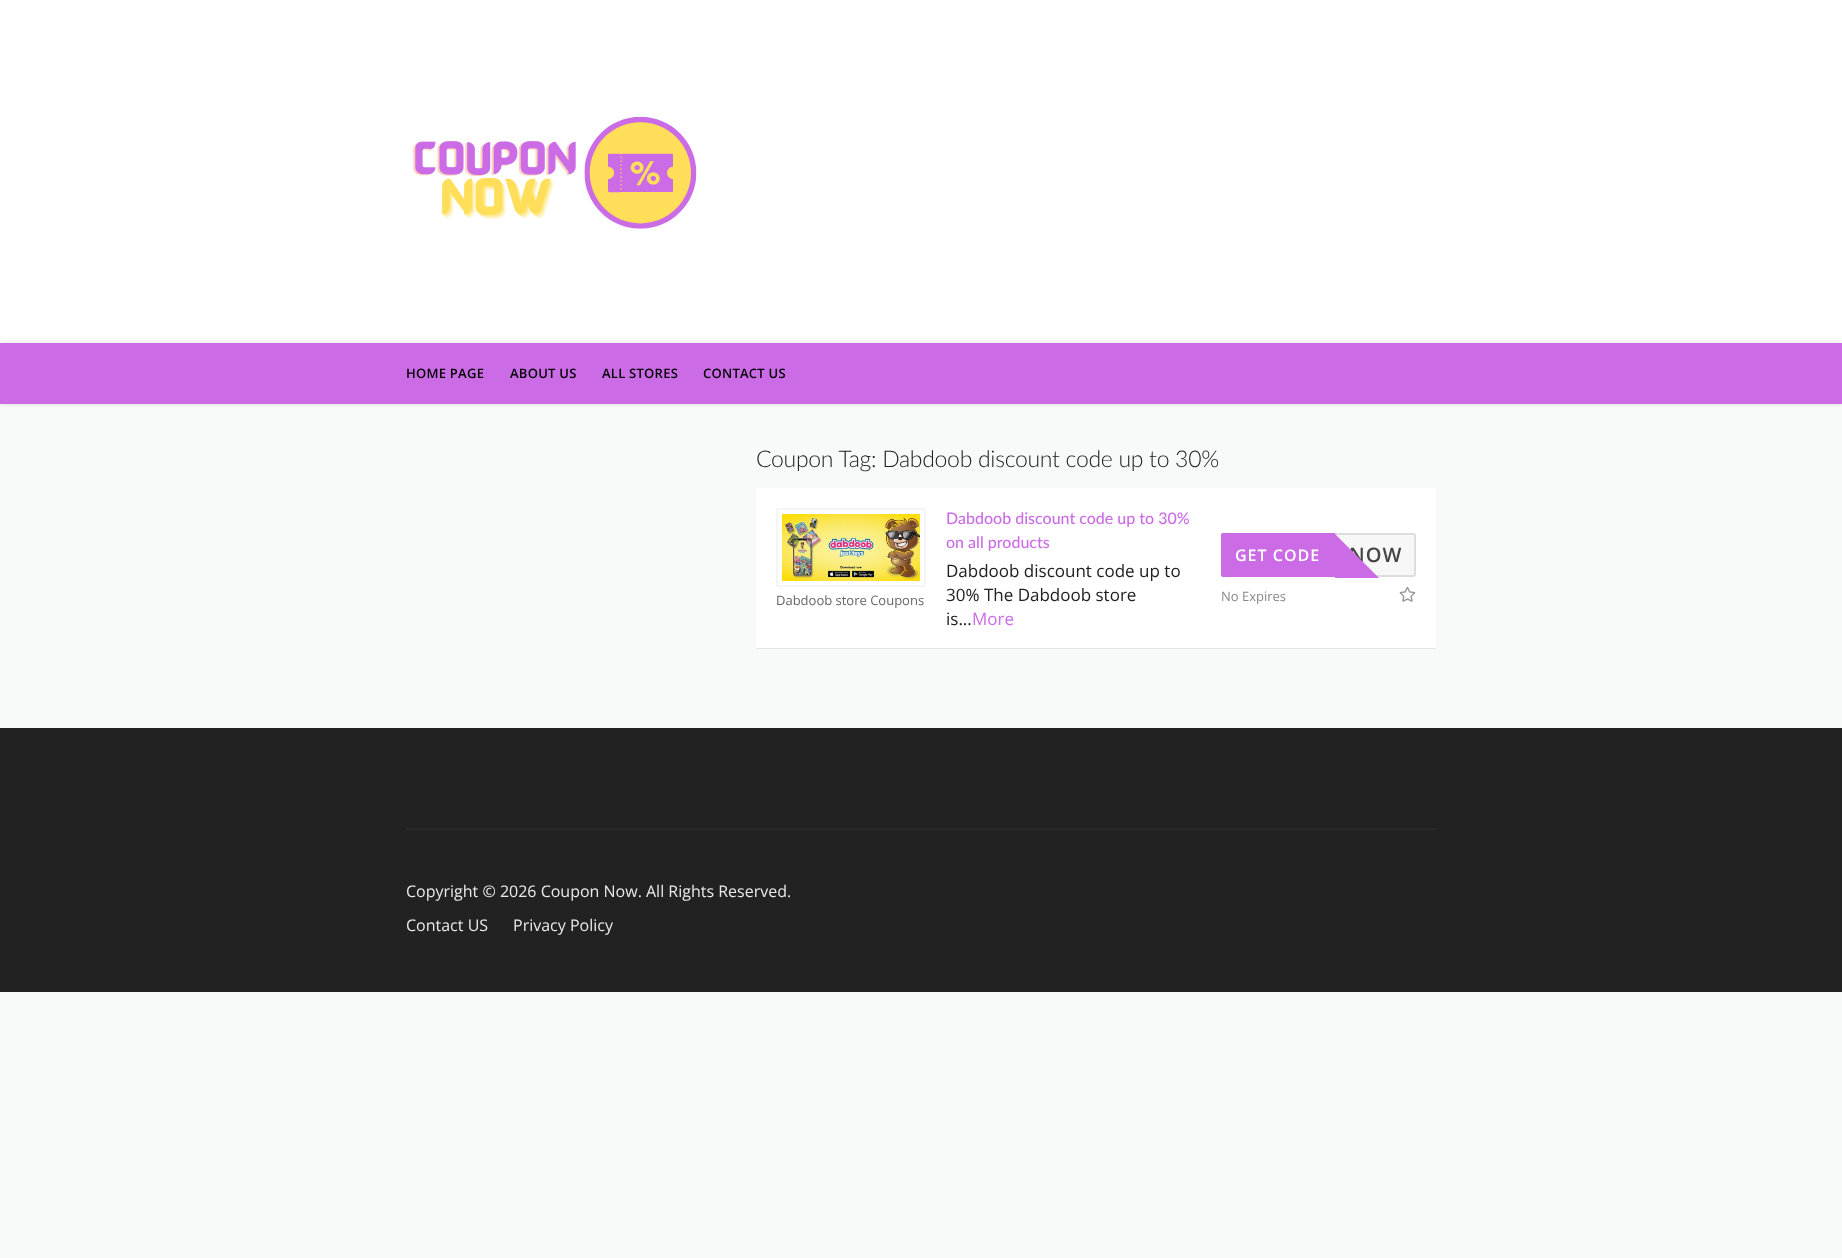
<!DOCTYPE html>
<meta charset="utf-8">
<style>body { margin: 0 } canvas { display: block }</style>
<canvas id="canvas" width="1842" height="1258"></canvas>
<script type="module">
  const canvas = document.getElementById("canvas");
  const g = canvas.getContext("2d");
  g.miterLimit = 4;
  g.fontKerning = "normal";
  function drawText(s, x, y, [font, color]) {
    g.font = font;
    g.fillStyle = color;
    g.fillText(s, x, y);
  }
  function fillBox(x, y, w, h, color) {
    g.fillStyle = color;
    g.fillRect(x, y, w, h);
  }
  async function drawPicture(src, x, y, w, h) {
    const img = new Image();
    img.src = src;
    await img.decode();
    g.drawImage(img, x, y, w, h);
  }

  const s1 = ["600 13px Open Sans", "#000000"];
  const s2 = ["300 23px Lato", "#212121"];
  const s3 = ["13px Open Sans", "#666666"];
  const s4 = ["500 16px Lato", "#CB6CE6"];
  const s5 = ["17px Open Sans", "#212121"];
  const s6 = ["17px Open Sans", "#CB6CE6"];
  const s7 = ["600 16px Open Sans", "#FFFFFF"];
  const s8 = ["600 20px Open Sans", "#444444"];
  const s9 = ["13px Open Sans", "#888888"];
  const s10 = ["16px Open Sans", "#E9E9E9"];

  fillBox(0, 0, 1842, 1258, "#F8F9F9");
  fillBox(0, 0, 1842, 343, "#FFFFFF");
  await drawPicture("pic1.png", 413, 116, 284, 113);
  g.fillStyle = "rgba(0, 0, 0, 0.12)";
  g.filter = "blur(2.5px)";
  g.beginPath();
  g.rect(0, 343, 1842, 61);
  g.fill();
  g.filter = "none";
  fillBox(0, 343, 1842, 61, "#CB6CE6");
  g.letterSpacing = "0.25px";
  drawText("HOME PAGE", 406, 378, s1);
  drawText("ABOUT US", 510, 378, s1);
  drawText("ALL STORES", 602, 378, s1);
  drawText("CONTACT US", 703, 378, s1);
  g.letterSpacing = "-0.3px";
  drawText("Coupon Tag: Dabdoob discount code up to 30%", 756, 467, s2);
  g.fillStyle = "rgba(0, 0, 0, 0.08)";
  g.filter = "blur(0.5px)";
  g.beginPath();
  g.rect(756, 489, 680, 160);
  g.fill();
  g.filter = "none";
  fillBox(756, 488, 680, 160, "#FFFFFF");
  g.beginPath();
  g.roundRect(777, 509, 148, 77, 1);
  g.strokeStyle = "#F5F5F5";
  g.lineWidth = 2;
  g.stroke();
  await drawPicture("pic2.png", 782, 514, 138, 67);
  g.letterSpacing = "0px";
  drawText("Dabdoob store Coupons", 776, 605, s3);
  drawText("Dabdoob discount code up to 30%", 946, 524, s4);
  drawText("on all products", 946, 548, s4);
  drawText("Dabdoob discount code up to", 946, 577, s5);
  drawText("30% The Dabdoob store", 946, 601, s5);
  drawText("is...", 946, 625, s5);
  drawText("More", 972, 625, s6);
  g.fillStyle = "#F7F7F7";
  g.beginPath();
  g.roundRect(1222, 534, 193, 42, 2);
  g.fill();
  g.strokeStyle = "#DDDDDD";
  g.stroke();
  g.fillStyle = "#CB6CE6";
  g.beginPath();
  g.roundRect(1221, 533, 114, 44, [2, 0, 0, 2]);
  g.fill();
  g.letterSpacing = "1px";
  drawText("GET CODE", 1235, 561, s7);
  drawText("NOW", 1349, 562, s8);
  g.fillStyle = "#CB6CE6";
  g.beginPath();
  g.moveTo(1335, 578);
  g.lineTo(1335, 534);
  g.lineTo(1379, 578);
  g.closePath();
  g.fill();
  g.letterSpacing = "0px";
  drawText("No Expires", 1221, 601, s9);
  await drawPicture("pic3.png", 1399, 586, 17, 16);
  fillBox(0, 728, 1842, 264, "#222222");
  fillBox(406, 828, 1030, 2, "#292929");
  drawText("Copyright © 2026 Coupon Now. All Rights Reserved.", 406, 897, s10);
  drawText("Contact US", 406, 931, s10);
  drawText("Privacy Policy", 513, 931, s10);
</script>
